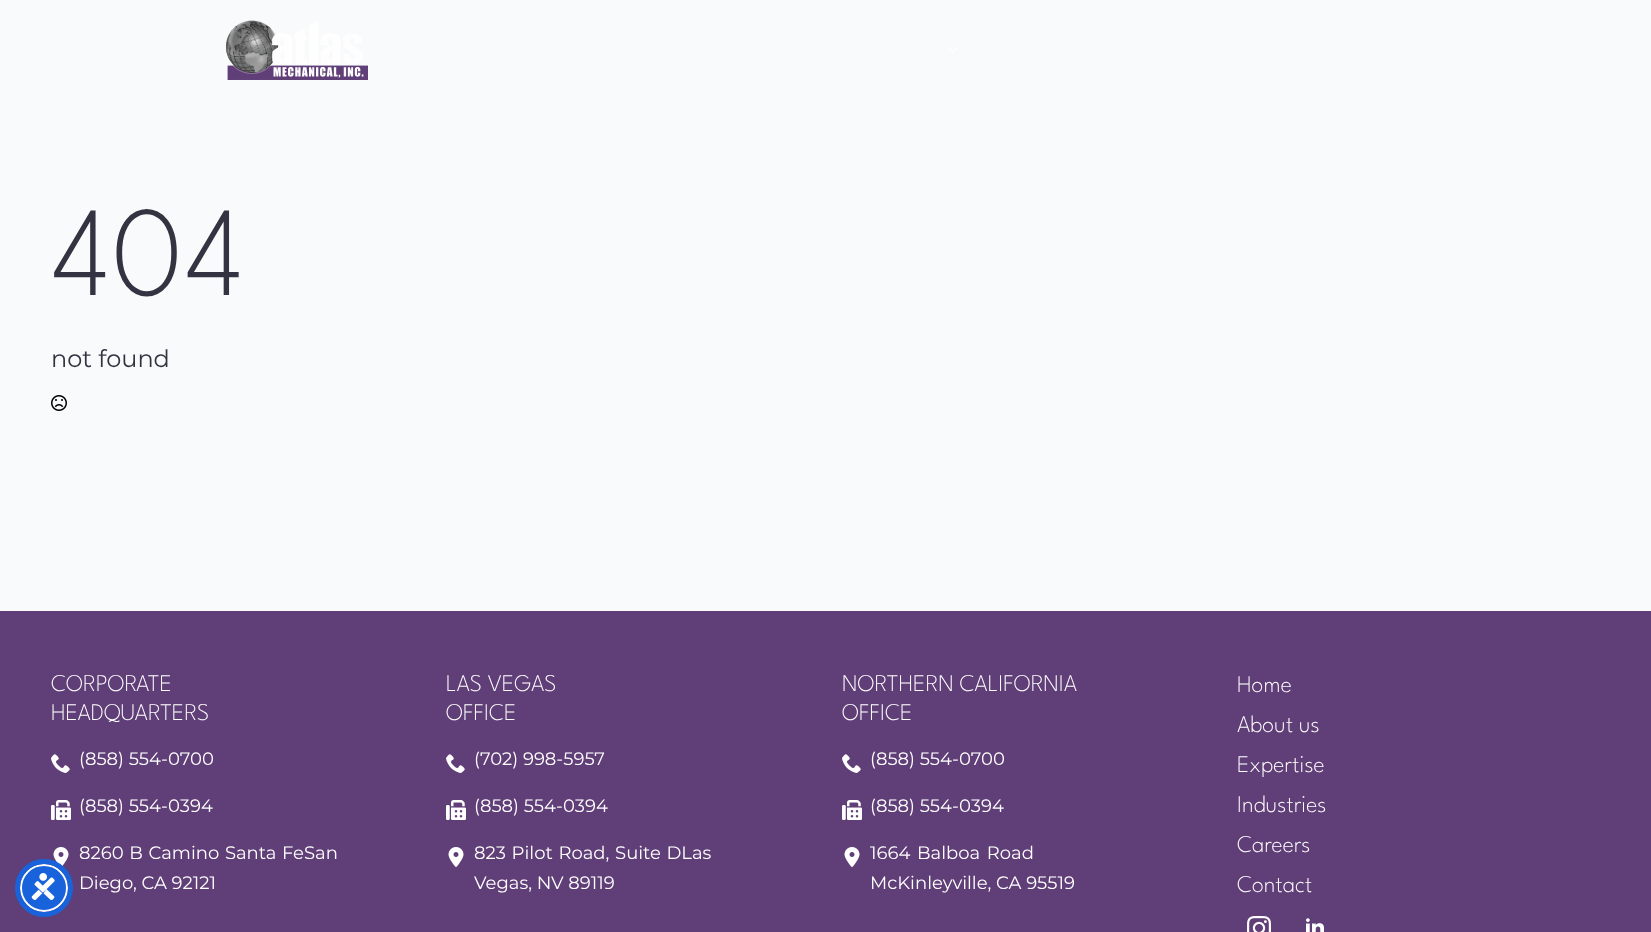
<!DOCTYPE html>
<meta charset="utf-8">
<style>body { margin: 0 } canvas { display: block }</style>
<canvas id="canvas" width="1651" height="932"></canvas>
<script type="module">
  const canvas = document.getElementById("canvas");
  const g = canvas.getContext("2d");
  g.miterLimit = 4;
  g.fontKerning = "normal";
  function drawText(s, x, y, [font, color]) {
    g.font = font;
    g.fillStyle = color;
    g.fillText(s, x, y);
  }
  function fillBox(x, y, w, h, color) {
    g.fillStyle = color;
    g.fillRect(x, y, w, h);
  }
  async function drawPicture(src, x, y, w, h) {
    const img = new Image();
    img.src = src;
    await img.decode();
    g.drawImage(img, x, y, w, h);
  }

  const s1 = ["200 128px League Spartan", "#333441"];
  const s2 = ["24px Montserrat", "#333441"];
  const s3 = ["200 24px League Spartan", "#FFFFFF"];
  const s4 = ["18px Montserrat", "#FFFFFF"];

  fillBox(0, 0, 1651, 932, "#F9FAFB");
  await drawPicture("pic1.png", 225, 20, 143, 60);
  await drawPicture("pic2.png", 949, 48, 8, 4);
  drawText("404", 51, 295, s1);
  drawText("not found", 51, 367, s2);
  await drawPicture("pic3.png", 51, 395, 16, 16);
  fillBox(0, 611, 1651, 321, "#603E77");
  await drawPicture("pic7.png", 53, 847, 16, 20);
  g.fillStyle = "#1863DC";
  g.beginPath();
  g.arc(44, 888, 23, 0, Math.PI * 2);
  g.fill();
  g.strokeStyle = "#FFFFFF";
  g.lineWidth = 2;
  g.stroke();
  g.beginPath();
  g.arc(44, 888, 26.5, 0, Math.PI * 2);
  g.strokeStyle = "#1863DC";
  g.lineWidth = 5;
  g.stroke();
  await drawPicture("pic4.png", 31, 873, 24, 27);
  drawText("CORPORATE", 51, 691, s3);
  drawText("HEADQUARTERS", 51, 720, s3);
  await drawPicture("pic5.png", 51, 754, 19, 19);
  drawText("(858) 554-0700", 79, 765, s4);
  await drawPicture("pic6.png", 51, 800, 20, 20);
  drawText("(858) 554-0394", 79, 812, s4);
  g.wordSpacing = "1px";
  drawText("8260 B Camino Santa FeSan", 79, 859, s4);
  g.wordSpacing = "0px";
  drawText("Diego, CA 92121", 79, 889, s4);
  drawText("LAS VEGAS", 446, 691, s3);
  drawText("OFFICE", 446, 720, s3);
  await drawPicture("pic5.png", 446, 754, 19, 19);
  drawText("(702) 998-5957", 474, 765, s4);
  await drawPicture("pic6.png", 446, 800, 20, 20);
  drawText("(858) 554-0394", 474, 812, s4);
  await drawPicture("pic7.png", 448, 847, 16, 20);
  g.wordSpacing = "1px";
  drawText("823 Pilot Road, Suite DLas", 474, 859, s4);
  g.wordSpacing = "0px";
  drawText("Vegas, NV 89119", 474, 889, s4);
  drawText("NORTHERN CALIFORNIA", 842, 691, s3);
  drawText("OFFICE", 842, 720, s3);
  await drawPicture("pic5.png", 842, 754, 19, 19);
  drawText("(858) 554-0700", 870, 765, s4);
  await drawPicture("pic6.png", 842, 800, 20, 20);
  drawText("(858) 554-0394", 870, 812, s4);
  await drawPicture("pic7.png", 844, 847, 16, 20);
  g.wordSpacing = "2px";
  drawText("1664 Balboa Road", 870, 859, s4);
  g.wordSpacing = "0px";
  drawText("McKinleyville, CA 95519", 870, 889, s4);
  drawText("Home", 1237, 692, s3);
  drawText("About us", 1237, 732, s3);
  drawText("Expertise", 1237, 772, s3);
  drawText("Industries", 1237, 812, s3);
  drawText("Careers", 1237, 852, s3);
  drawText("Contact", 1237, 892, s3);
  await drawPicture("pic8.png", 1247, 916, 24, 16);
  await drawPicture("pic9.png", 1306, 918, 18, 14);
</script>
